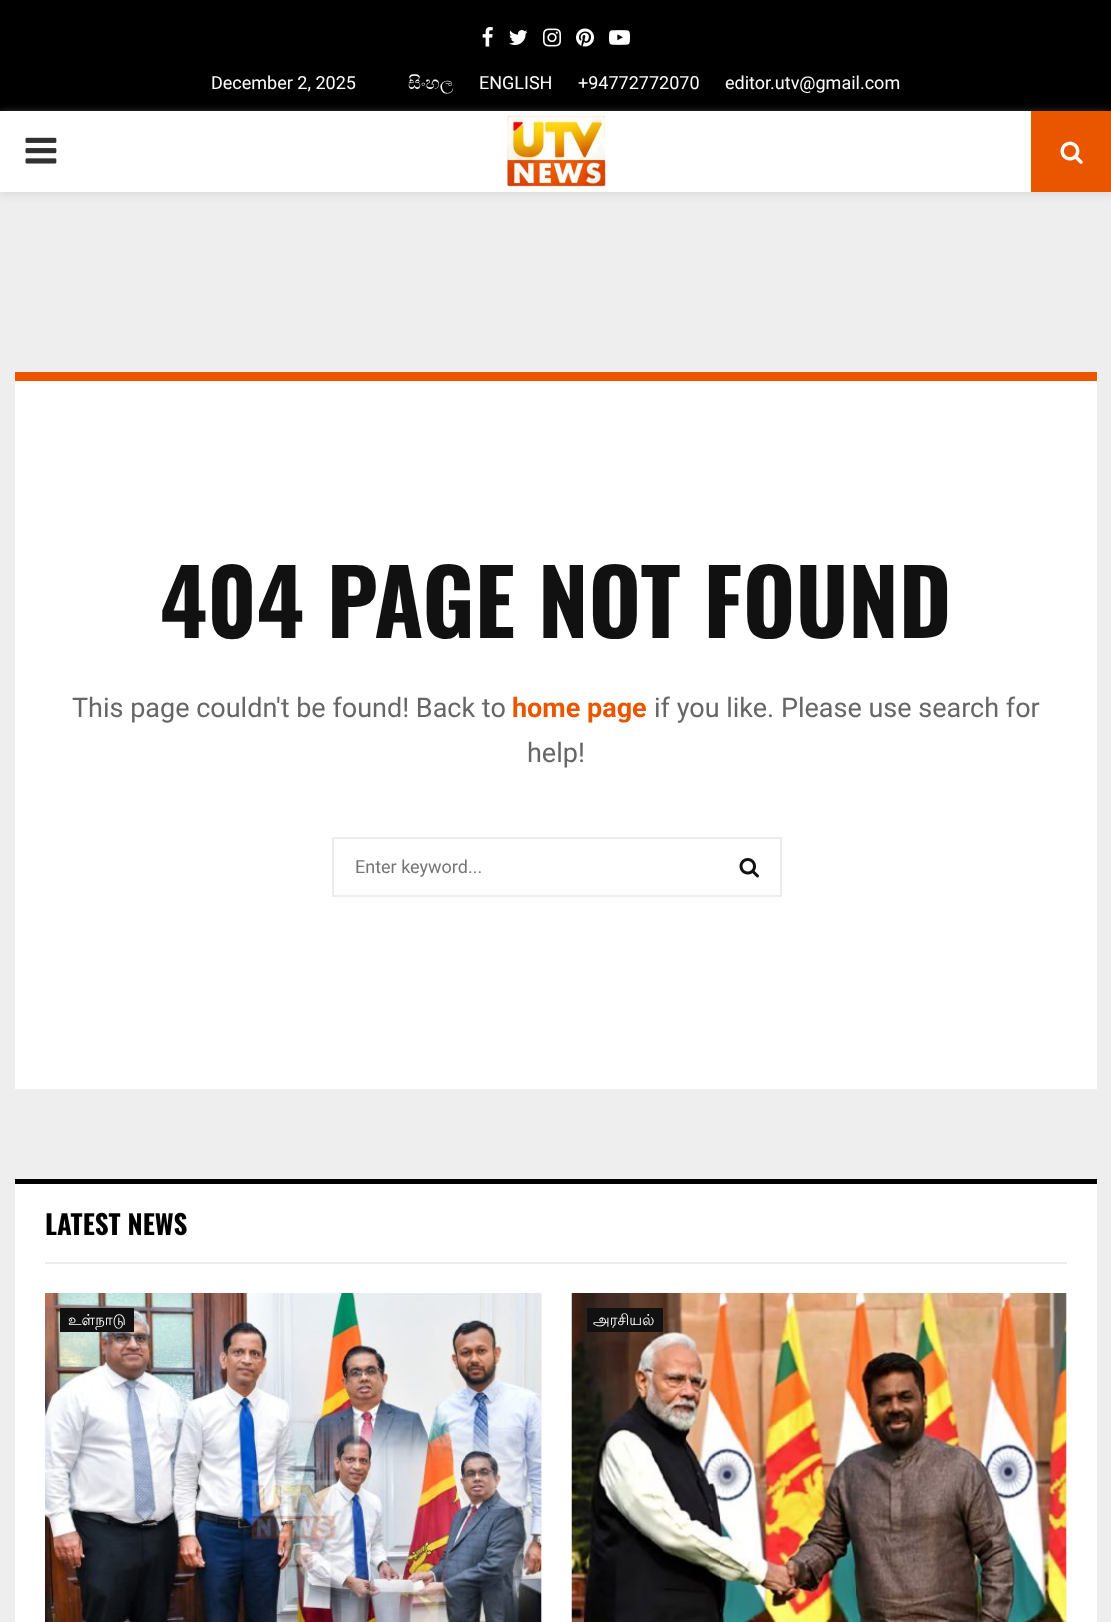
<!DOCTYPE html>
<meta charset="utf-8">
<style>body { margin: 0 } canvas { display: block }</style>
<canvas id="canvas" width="1111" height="1622"></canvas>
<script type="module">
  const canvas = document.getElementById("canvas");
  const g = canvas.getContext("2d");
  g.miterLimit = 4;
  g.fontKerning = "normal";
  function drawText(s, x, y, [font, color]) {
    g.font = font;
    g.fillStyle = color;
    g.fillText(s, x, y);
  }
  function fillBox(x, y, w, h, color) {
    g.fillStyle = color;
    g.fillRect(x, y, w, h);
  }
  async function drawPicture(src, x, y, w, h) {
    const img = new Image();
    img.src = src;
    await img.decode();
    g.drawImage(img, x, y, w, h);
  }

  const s1 = ["18px Roboto", "#FFFFFF"];
  const s2 = ["18px FreeSerif", "#FFFFFF"];
  const s3 = ["bold 90px Oswald", "#111111"];
  const s4 = ["27px Roboto", "#666666"];
  const s5 = ["bold 27px Roboto", "#EA5600"];
  const s6 = ["18px Roboto", "#757575"];
  const s7 = ["bold 27px Oswald", "#000000"];
  const s8 = ["15px Lohit Tamil", "#FFFFFF"];

  fillBox(0, 0, 1111, 1622, "#EEEEEE");
  fillBox(0, 0, 1111, 111, "#000000");
  await drawPicture("pic1.png", 482, 27, 11, 20);
  await drawPicture("pic2.png", 509, 30, 19, 15);
  await drawPicture("pic3.png", 543, 28, 18, 19);
  await drawPicture("pic4.png", 576, 28, 18, 19);
  await drawPicture("pic5.png", 609, 30, 21, 15);
  drawText("December 2, 2025", 211, 89, s1);
  drawText("සිංහල", 408, 89, s2);
  drawText("ENGLISH", 479, 89, s1);
  drawText("+94772772070", 578, 89, s1);
  drawText("editor.utv@gmail.com", 725, 89, s1);
  g.fillStyle = "rgba(190, 190, 190, 0.46)";
  g.filter = "blur(4px)";
  g.beginPath();
  g.rect(0, 113, 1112, 81);
  g.fill();
  g.filter = "none";
  fillBox(0, 111, 1031, 81, "#FFFFFF");
  await drawPicture("pic6.png", 25, 137, 32, 27);
  await drawPicture("pic7.png", 507, 115, 99, 72);
  fillBox(1031, 111, 80, 81, "#EA5600");
  await drawPicture("pic8.png", 1060, 141, 23, 23);
  fillBox(15, 381, 1082, 708, "#FFFFFF");
  fillBox(15, 372, 1082, 9, "#EA5600");
  drawText("404 PAGE NOT FOUND", 160, 638, s3);
  drawText("This page couldn't be found! Back to", 72, 717, s4);
  drawText("home page", 512, 717, s5);
  drawText("if you like. Please use search for", 654, 717, s4);
  drawText("help!", 527, 762, s4);
  g.strokeStyle = "#ECECEC";
  g.lineWidth = 2;
  g.strokeRect(333, 838, 448, 58);
  drawText("Enter keyword...", 355, 873, s6);
  await drawPicture("pic9.png", 739, 858, 20, 20);
  fillBox(15, 1184, 1082, 438, "#FFFFFF");
  fillBox(45, 1262, 1022, 2, "#ECECEC");
  fillBox(15, 1179, 1082, 5, "#000000");
  drawText("LATEST NEWS", 45, 1235, s7);
  fillBox(541, 1293, 1, 329, "#F5F5F5");
  await drawPicture("pic10.png", 45, 1293, 497, 329);
  fillBox(60, 1308, 74, 24, "#111111");
  drawText("உள்நாடு", 68, 1325, s8);
  fillBox(1066, 1293, 1, 329, "#F5F5F5");
  await drawPicture("pic11.png", 571, 1293, 496, 329);
  fillBox(587, 1308, 76, 24, "#111111");
  drawText("அரசியல்", 593, 1325, s8);
</script>
